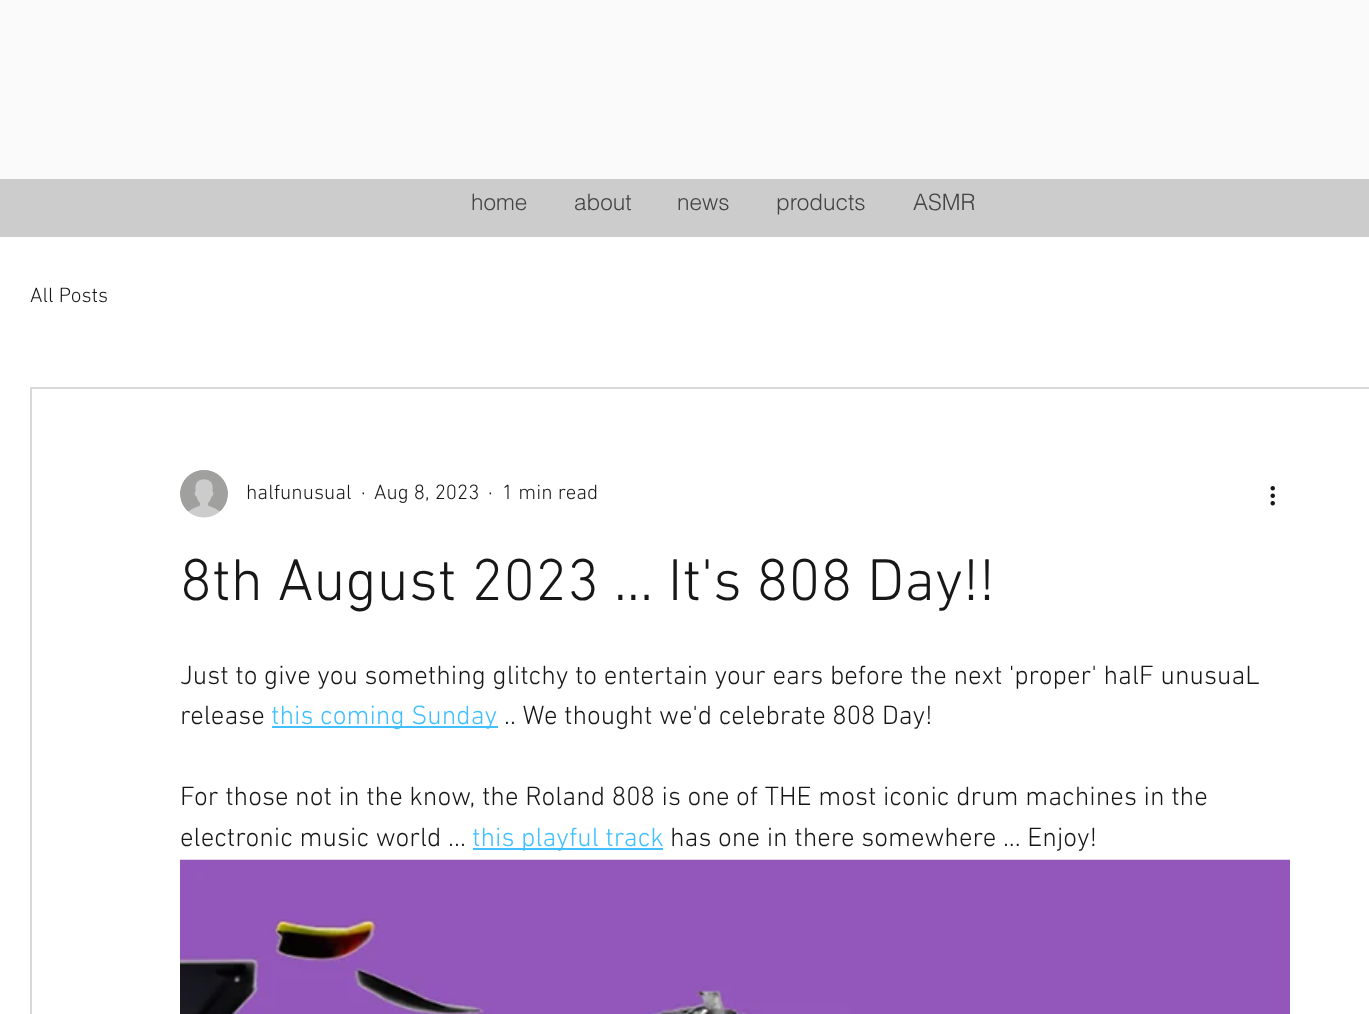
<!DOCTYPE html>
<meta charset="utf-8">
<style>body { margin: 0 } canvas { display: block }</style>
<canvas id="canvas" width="1369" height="1014"></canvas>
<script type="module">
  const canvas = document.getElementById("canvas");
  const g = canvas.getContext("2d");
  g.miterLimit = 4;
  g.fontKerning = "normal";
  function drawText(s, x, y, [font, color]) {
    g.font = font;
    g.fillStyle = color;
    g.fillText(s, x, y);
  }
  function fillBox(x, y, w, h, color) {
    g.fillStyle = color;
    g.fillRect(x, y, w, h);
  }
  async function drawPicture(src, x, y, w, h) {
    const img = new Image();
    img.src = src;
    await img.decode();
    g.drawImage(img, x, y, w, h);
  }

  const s1 = ["300 22.5px helvetica", "#444444"];
  const s2 = ["300 21px 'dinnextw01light'", "#171717"];
  const s3 = ["300 60px 'dinnextw01light'", "#171717"];
  const s4 = ["300 27px 'dinnextw01light'", "#171717"];
  const s5 = ["300 27px 'dinnextw01light'", "#41BFFF"];

  fillBox(0, 0, 1369, 1014, "#CCCCCC");
  fillBox(0, 0, 1369, 179, "#FAFAFA");
  drawText("home", 471, 210, s1);
  drawText("about", 574, 210, s1);
  drawText("news", 677, 210, s1);
  drawText("products", 776, 210, s1);
  drawText("ASMR", 913, 210, s1);
  fillBox(0, 237, 1369, 777, "#FFFFFF");
  drawText("All Posts", 30, 302, s2);
  g.strokeStyle = "#D9D9D9";
  g.lineWidth = 2;
  g.strokeRect(31, 388, 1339, 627);
  await drawPicture("pic1.png", 180, 470, 48, 48);
  drawText("halfunusual", 246, 499, s2);
  drawText("·", 361, 499, s2);
  drawText("Aug 8, 2023", 374, 499, s2);
  drawText("·", 488, 499, s2);
  drawText("1 min read", 502, 499, s2);
  await drawPicture("pic2.png", 1270, 486, 5, 20);
  drawText("8th August 2023 ... It's 808 Day!!", 180, 600, s3);
  drawText("Just to give you something glitchy to entertain your ears before the next 'proper' halF unusuaL", 180, 684, s4);
  drawText("release", 180, 724, s4);
  fillBox(272, 726, 226, 2, "#41BFFF");
  drawText("this coming Sunday", 271, 724, s5);
  drawText(".. We thought we'd celebrate 808 Day!", 504, 724, s4);
  drawText("For those not in the know, the Roland 808 is one of THE most iconic drum machines in the", 180, 805, s4);
  drawText("electronic music world ...", 180, 846, s4);
  fillBox(473, 848, 190, 2, "#41BFFF");
  drawText("this playful track", 472, 846, s5);
  drawText("has one in there somewhere ... Enjoy!", 670, 846, s4);
  await drawPicture("pic3.png", 180, 859, 1110, 155);
</script>
